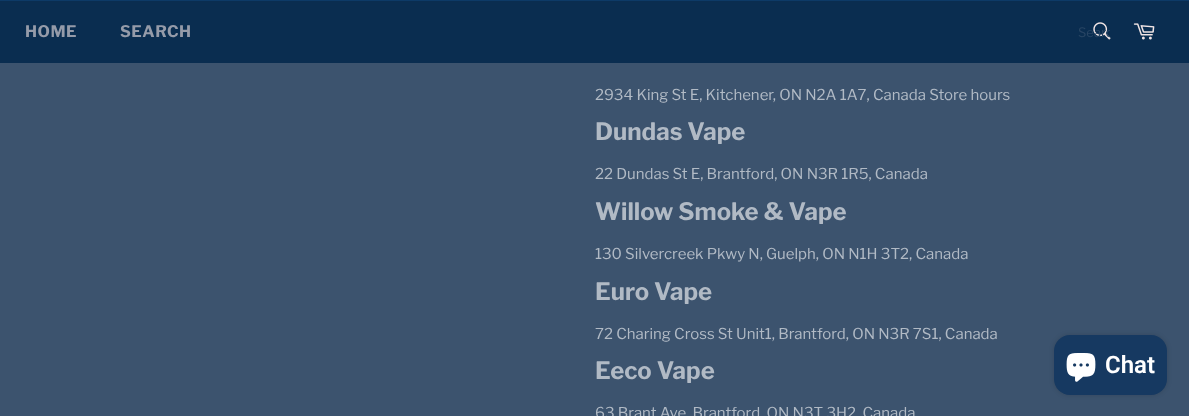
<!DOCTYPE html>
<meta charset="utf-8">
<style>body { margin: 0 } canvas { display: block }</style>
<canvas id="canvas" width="1189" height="416"></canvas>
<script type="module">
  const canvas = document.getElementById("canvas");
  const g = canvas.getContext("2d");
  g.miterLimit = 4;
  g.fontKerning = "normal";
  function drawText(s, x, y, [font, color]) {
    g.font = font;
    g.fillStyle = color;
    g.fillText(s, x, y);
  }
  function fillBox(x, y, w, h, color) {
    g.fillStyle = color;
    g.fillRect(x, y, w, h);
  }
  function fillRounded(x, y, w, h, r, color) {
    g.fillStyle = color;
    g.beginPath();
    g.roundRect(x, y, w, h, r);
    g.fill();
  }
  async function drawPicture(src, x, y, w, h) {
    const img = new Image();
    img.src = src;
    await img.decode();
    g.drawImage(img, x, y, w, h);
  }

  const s1 = ["bold 16px Libre Franklin", "#959BA9"];
  const s2 = ["13px Libre Franklin", "#284564"];
  const s3 = ["15px Libre Franklin", "#B1BAC5"];
  const s4 = ["bold 24px Libre Franklin", "#B1BAC5"];
  const s5 = ["600 24px Roboto", "#FFFFFF"];

  fillBox(0, 0, 1189, 416, "#3C536E");
  fillBox(0, 1, 1189, 62, "#0A2D50");
  fillBox(0, 0, 1189, 1, "#0D3A67");
  g.letterSpacing = "0.5px";
  drawText("HOME", 25, 37, s1);
  drawText("SEARCH", 120, 37, s1);
  await drawPicture("pic1.png", 1093, 22, 18, 18);
  g.save();
  g.beginPath();
  g.rect(1078, 24, 32, 16);
  g.clip();
  g.letterSpacing = "0px";
  drawText("Searc", 1078, 37, s2);
  g.restore();
  await drawPicture("pic2.png", 1133, 23, 22, 17);
  g.letterSpacing = "0px";
  drawText("2934 King St E, Kitchener, ON N2A 1A7, Canada Store hours", 595, 100, s3);
  drawText("Dundas Vape", 595, 140, s4);
  drawText("22 Dundas St E, Brantford, ON N3R 1R5, Canada", 595, 179, s3);
  drawText("Willow Smoke & Vape", 595, 220, s4);
  drawText("130 Silvercreek Pkwy N, Guelph, ON N1H 3T2, Canada", 595, 259, s3);
  drawText("Euro Vape", 595, 300, s4);
  drawText("72 Charing Cross St Unit1, Brantford, ON N3R 7S1, Canada", 595, 339, s3);
  drawText("Eeco Vape", 595, 379, s4);
  drawText("63 Brant Ave, Brantford, ON N3T 3H2, Canada", 595, 418, s3);
  g.fillStyle = "rgba(0, 0, 0, 0.15)";
  g.filter = "blur(2.5px)";
  g.beginPath();
  g.roundRect(1054, 335, 113, 60, 16);
  g.fill();
  g.filter = "none";
  fillRounded(1054, 335, 113, 60, 16, "#163961");
  await drawPicture("pic3.png", 1066, 353, 30, 29);
  drawText("Chat", 1105, 373, s5);
</script>
